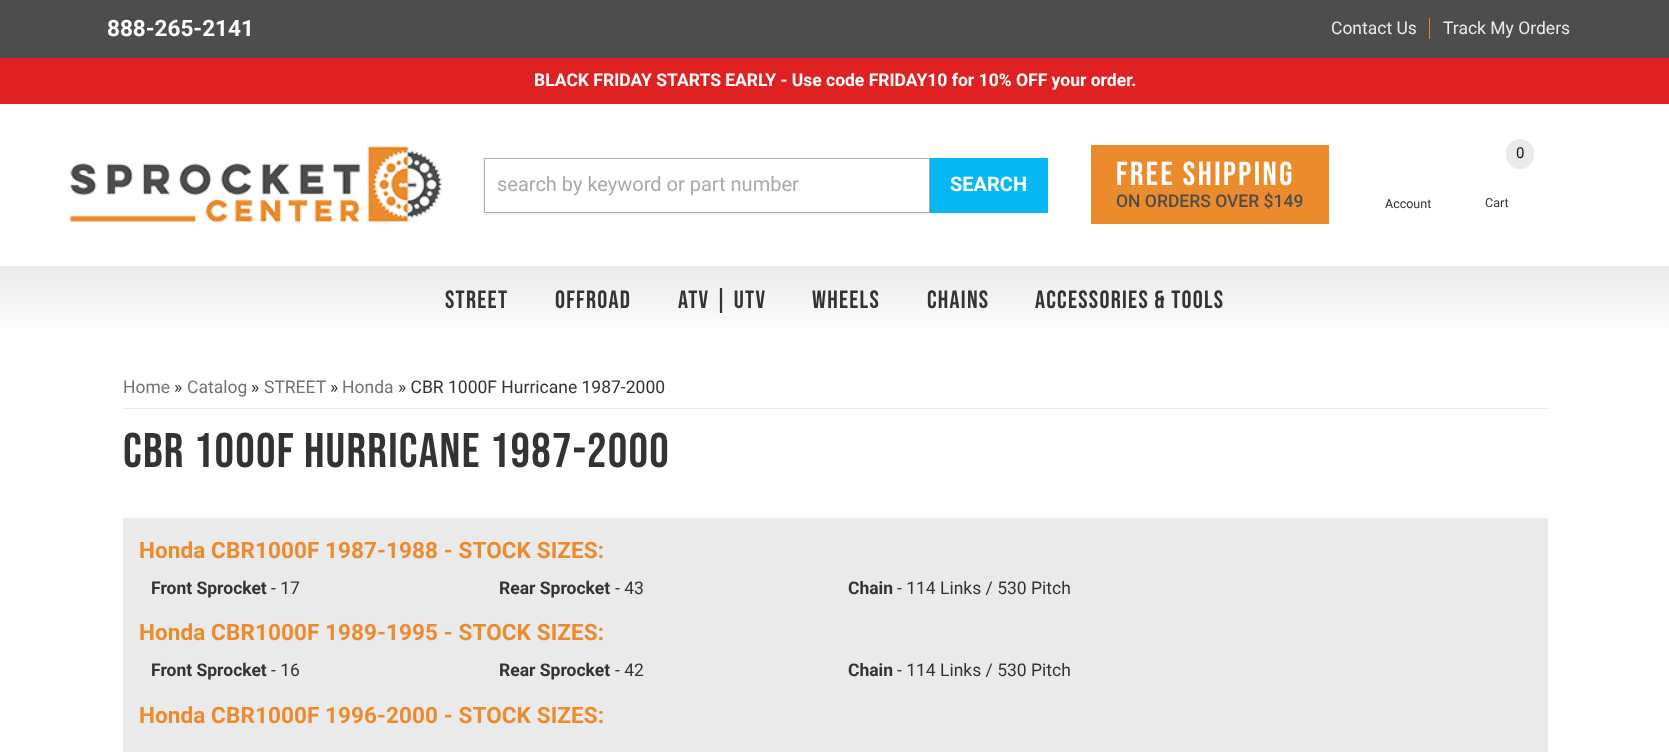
<!DOCTYPE html>
<meta charset="utf-8">
<style>body { margin: 0 } canvas { display: block }</style>
<canvas id="canvas" width="1669" height="752"></canvas>
<script type="module">
  const canvas = document.getElementById("canvas");
  const g = canvas.getContext("2d");
  g.miterLimit = 4;
  g.fontKerning = "normal";
  function drawText(s, x, y, [font, color]) {
    g.font = font;
    g.fillStyle = color;
    g.fillText(s, x, y);
  }
  function fillBox(x, y, w, h, color) {
    g.fillStyle = color;
    g.fillRect(x, y, w, h);
  }
  function fillRounded(x, y, w, h, r, color) {
    g.fillStyle = color;
    g.beginPath();
    g.roundRect(x, y, w, h, r);
    g.fill();
  }
  async function drawPicture(src, x, y, w, h) {
    const img = new Image();
    img.src = src;
    await img.decode();
    g.drawImage(img, x, y, w, h);
  }
  let gradient;

  const s1 = ["bold 22.5px Roboto", "#FFFFFF"];
  const s2 = ["17.5px Roboto", "#EAEAEA"];
  const s3 = ["bold 17.5px Roboto", "#FFFFFF"];
  const s4 = ["20px Roboto", "#AAAAAA"];
  const s5 = ["bold 20px Roboto", "#FFFFFF"];
  const s6 = ["33.25px Bebas Neue", "#FFFFFF"];
  const s7 = ["500 17.5px Roboto", "#4D4D4D"];
  const s8 = ["12.5px Roboto", "#333333"];
  const s9 = ["15px Roboto", "#0F0F0F"];
  const s10 = ["25px Bebas Neue", "#333333"];
  const s11 = ["17.5px Roboto", "#727272"];
  const s12 = ["17.5px Roboto", "#333333"];
  const s13 = ["48.75px Bebas Neue", "#333333"];
  const s14 = ["bold 22.5px Roboto", "#EB8B2D"];
  const s15 = ["bold 17.5px Roboto", "#333333"];

  fillBox(0, 0, 1669, 752, "#FFFFFF");
  fillBox(0, 0, 1669, 58, "#4D4D4D");
  drawText("888-265-2141", 107, 36, s1);
  fillBox(1429, 18, 1, 21, "#EB8B2D");
  drawText("Contact Us", 1331, 34, s2);
  drawText("Track My Orders", 1443, 34, s2);
  fillBox(0, 58, 1669, 46, "#E02121");
  drawText("BLACK FRIDAY STARTS EARLY - Use code FRIDAY10 for 10% OFF your order.", 534, 86, s3);
  await drawPicture("pic1.png", 69, 146, 374, 77);
  fillBox(930, 158, 118, 55, "#08B8F2");
  g.fillStyle = "rgba(0, 0, 0, 0.04)";
  g.beginPath();
  g.moveTo(483, 158);
  g.lineTo(483, 215);
  g.lineTo(931, 215);
  g.lineTo(931, 158);
  g.lineTo(930, 158);
  g.lineTo(930, 212);
  g.lineTo(484, 212);
  g.lineTo(484, 158);
  g.closePath();
  g.fill();
  g.strokeStyle = "#AAAAAA";
  g.strokeRect(484.5, 158.5, 445, 54);
  drawText("search by keyword or part number", 497, 191, s4);
  drawText("SEARCH", 950, 191, s5);
  fillBox(1091, 145, 238, 79, "#EB8B2D");
  g.letterSpacing = "2.5px";
  drawText("FREE SHIPPING", 1116, 185, s6);
  g.letterSpacing = "0px";
  drawText("ON ORDERS OVER $149", 1116, 207, s7);
  drawText("Account", 1385, 208, s8);
  fillBox(1431, 201, 1, 7, "#FFFFFF");
  fillRounded(1506, 139, 28, 30, 14, "#EAEAEA");
  drawText("0", 1516, 158, s9);
  drawText("Cart", 1485, 207, s8);
  gradient = g.createLinearGradient(835, 338, 835, 266);
  gradient.addColorStop(0, "#FFFFFF");
  gradient.addColorStop(1, "#EAEAEA");
  g.fillStyle = gradient;
  g.fillRect(0, 266, 1669, 63);
  g.letterSpacing = "1.25px";
  drawText("STREET", 445, 308, s10);
  drawText("OFFROAD", 555, 308, s10);
  drawText("ATV | UTV", 678, 308, s10);
  drawText("WHEELS", 812, 308, s10);
  drawText("CHAINS", 927, 308, s10);
  drawText("ACCESSORIES & TOOLS", 1035, 308, s10);
  fillBox(123, 408, 1425, 1, "#EAEAEA");
  g.letterSpacing = "0px";
  drawText("Home", 123, 393, s11);
  drawText("»", 174, 393, s12);
  drawText("Catalog", 187, 393, s11);
  drawText("»", 251, 393, s12);
  drawText("STREET", 264, 393, s11);
  drawText("»", 330, 393, s12);
  drawText("Honda", 342, 393, s11);
  drawText("» CBR 1000F Hurricane 1987-2000", 398, 393, s12);
  g.letterSpacing = "1.25px";
  drawText("CBR 1000F Hurricane 1987-2000", 123, 467, s13);
  fillBox(123, 518, 1425, 234, "#EAEAEA");
  g.letterSpacing = "0.1px";
  drawText("Honda CBR1000F 1987-1988 - STOCK SIZES:", 139, 558, s14);
  g.letterSpacing = "0px";
  drawText("Front Sprocket", 151, 594, s15);
  drawText("- 17", 271, 594, s12);
  drawText("Rear Sprocket", 499, 594, s15);
  drawText("- 43", 615, 594, s12);
  drawText("Chain", 848, 594, s15);
  drawText("- 114 Links / 530 Pitch", 897, 594, s12);
  g.letterSpacing = "0.1px";
  drawText("Honda CBR1000F 1989-1995 - STOCK SIZES:", 139, 640, s14);
  g.letterSpacing = "0px";
  drawText("Front Sprocket", 151, 676, s15);
  drawText("- 16", 271, 676, s12);
  drawText("Rear Sprocket", 499, 676, s15);
  drawText("- 42", 615, 676, s12);
  drawText("Chain", 848, 676, s15);
  drawText("- 114 Links / 530 Pitch", 897, 676, s12);
  g.letterSpacing = "0.1px";
  drawText("Honda CBR1000F 1996-2000 - STOCK SIZES:", 139, 723, s14);
</script>
